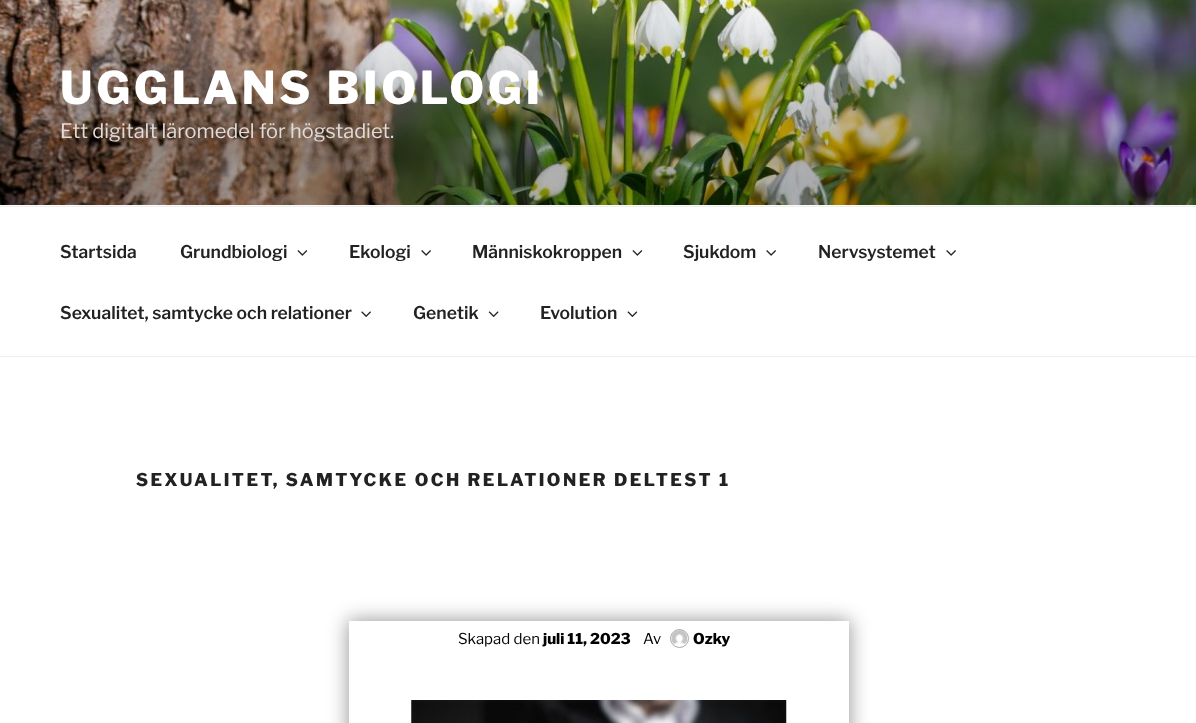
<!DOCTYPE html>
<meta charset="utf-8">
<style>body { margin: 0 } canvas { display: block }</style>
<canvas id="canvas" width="1196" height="723"></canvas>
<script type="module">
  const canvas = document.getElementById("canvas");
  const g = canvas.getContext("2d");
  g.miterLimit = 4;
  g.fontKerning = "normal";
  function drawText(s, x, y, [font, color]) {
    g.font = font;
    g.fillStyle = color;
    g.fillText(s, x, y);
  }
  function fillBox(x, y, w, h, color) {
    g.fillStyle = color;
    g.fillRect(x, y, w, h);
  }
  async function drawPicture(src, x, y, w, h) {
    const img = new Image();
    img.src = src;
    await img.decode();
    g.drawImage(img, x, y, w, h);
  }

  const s1 = ["100 45px Libre Franklin", "#FFFFFF"];
  const s2 = ["100 20px 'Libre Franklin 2'", "#E0DBD8"];
  const s3 = ["100 17.5px 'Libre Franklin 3'", "#222222"];
  const s4 = ["100 17.5px Libre Franklin", "#222222"];
  const s5 = ["100 15px 'Libre Franklin 2'", "#000000"];
  const s6 = ["100 15px Libre Franklin", "#000000"];

  fillBox(0, 0, 1196, 723, "#FFFFFF");
  fillBox(0, 205, 1196, 1, "#FAFAFA");
  await drawPicture("pic1.png", 0, 0, 1196, 205);
  g.letterSpacing = "3.6px";
  drawText("UGGLANS BIOLOGI", 60, 104, s1);
  g.letterSpacing = "0px";
  drawText("Ett digitalt läromedel för högstadiet.", 60, 138, s2);
  fillBox(0, 206, 1196, 1, "#EEEEEE");
  fillBox(0, 356, 1196, 1, "#EEEEEE");
  drawText("Startsida", 60, 258, s3);
  drawText("Grundbiologi", 180, 258, s3);
  await drawPicture("pic2.png", 297, 250, 11, 6);
  drawText("Ekologi", 349, 258, s3);
  await drawPicture("pic3.png", 421, 250, 10, 6);
  drawText("Människokroppen", 472, 258, s3);
  await drawPicture("pic2.png", 632, 250, 11, 6);
  drawText("Sjukdom", 683, 258, s3);
  await drawPicture("pic3.png", 766, 250, 10, 6);
  drawText("Nervsystemet", 818, 258, s3);
  await drawPicture("pic3.png", 946, 250, 10, 6);
  drawText("Sexualitet, samtycke och relationer", 60, 319, s3);
  await drawPicture("pic4.png", 361, 311, 10, 6);
  drawText("Genetik", 413, 319, s3);
  await drawPicture("pic5.png", 488, 311, 11, 6);
  drawText("Evolution", 540, 319, s3);
  await drawPicture("pic6.png", 627, 311, 11, 6);
  g.letterSpacing = "2.45px";
  drawText("SEXUALITET, SAMTYCKE OCH RELATIONER DELTEST 1", 136, 486, s4);
  g.fillStyle = "rgba(0, 0, 0, 0.4)";
  g.filter = "blur(9.5px)";
  g.beginPath();
  g.rect(348, 620, 502, 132);
  g.fill();
  g.filter = "none";
  fillBox(349, 621, 500, 102, "#FFFFFF");
  g.letterSpacing = "0px";
  drawText("Skapad den", 458, 644, s5);
  drawText("juli 11, 2023", 543, 644, s6);
  drawText("Av", 643, 644, s5);
  g.beginPath();
  g.arc(679.5, 638.5, 9, 0, Math.PI * 2);
  g.strokeStyle = "#AAAAAA";
  g.stroke();
  await drawPicture("pic7.png", 671, 630, 17, 15);
  drawText("Ozky", 693, 644, s6);
  await drawPicture("pic8.png", 411, 700, 376, 23);
</script>
